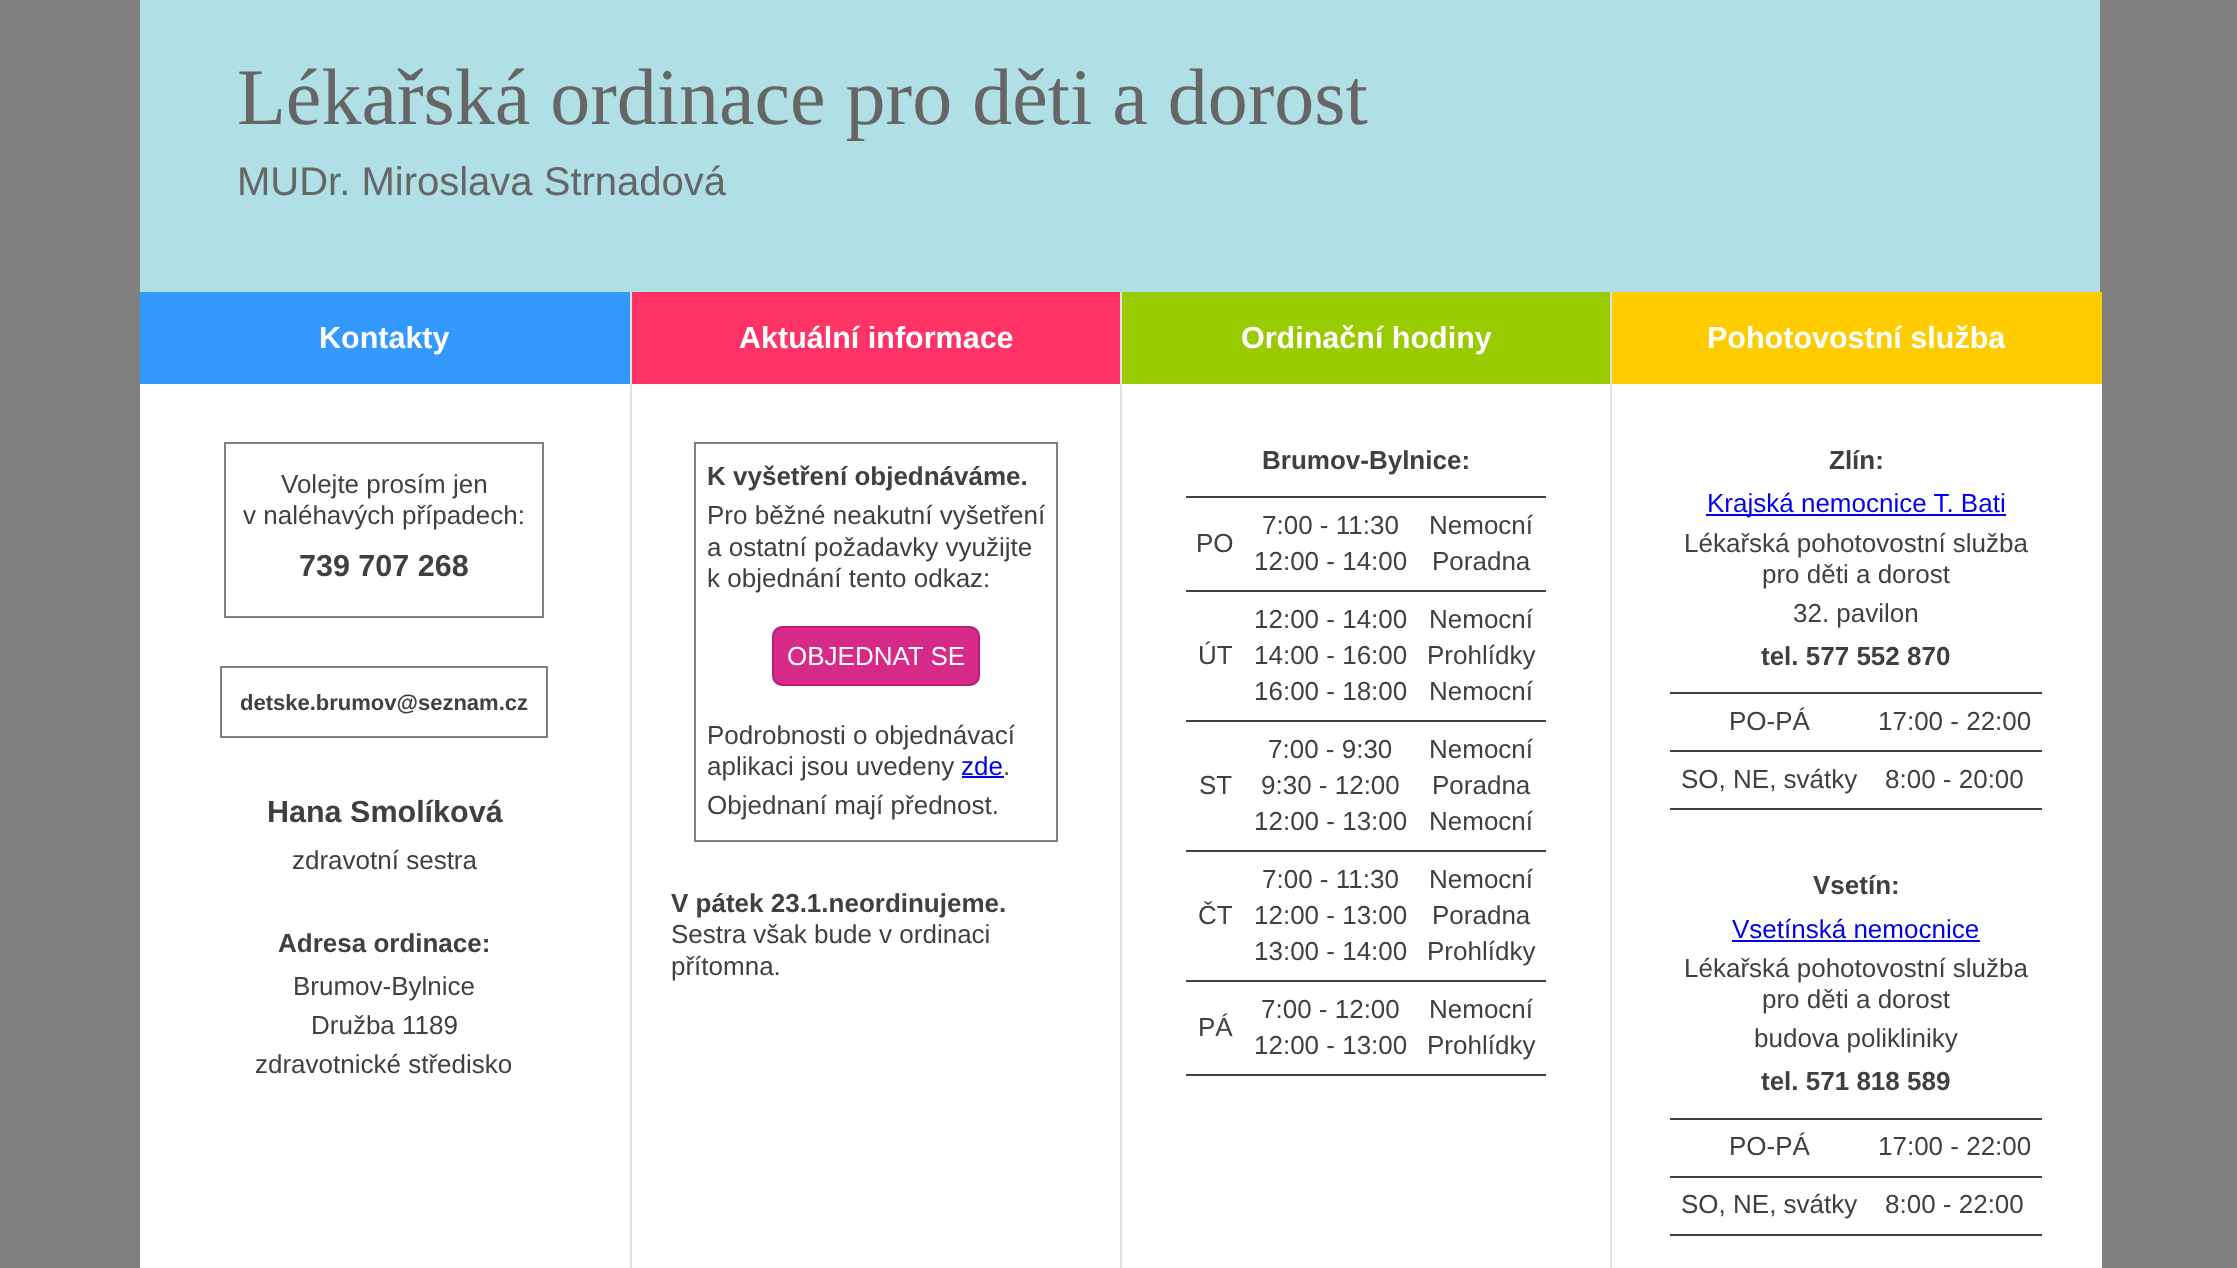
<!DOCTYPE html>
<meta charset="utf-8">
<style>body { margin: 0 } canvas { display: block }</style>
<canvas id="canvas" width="2237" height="1268"></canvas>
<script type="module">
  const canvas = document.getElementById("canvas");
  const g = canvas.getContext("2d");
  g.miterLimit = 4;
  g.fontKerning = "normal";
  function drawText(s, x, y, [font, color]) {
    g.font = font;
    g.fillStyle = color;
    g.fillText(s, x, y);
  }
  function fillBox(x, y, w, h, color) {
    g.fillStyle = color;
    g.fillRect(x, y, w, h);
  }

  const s1 = ["80px Liberation Serif", "#666666"];
  const s2 = ["40px Liberation Sans", "#666666"];
  const s3 = ["bold 30.5px Liberation Sans", "#FFFFFF"];
  const s4 = ["26px Liberation Sans", "#404040"];
  const s5 = ["bold 30.5px Liberation Sans", "#404040"];
  const s6 = ["bold 22px Liberation Sans", "#404040"];
  const s7 = ["bold 26px Liberation Sans", "#404040"];
  const s8 = ["26px Liberation Sans", "#FFFFFF"];
  const s9 = ["26px Liberation Sans", "#0000EE"];

  fillBox(0, 0, 2237, 1268, "#808080");
  fillBox(140, 0, 1960, 292, "#B0E0E6");
  drawText("Lékařská ordinace pro děti a dorost", 237, 124, s1);
  drawText("MUDr. Miroslava Strnadová", 237, 195, s2);
  fillBox(140, 384, 490, 884, "#FFFFFF");
  fillBox(630, 292, 2, 976, "#E0E0E0");
  fillBox(140, 292, 490, 92, "#3399FF");
  drawText("Kontakty", 319, 348, s3);
  g.strokeStyle = "#808080";
  g.lineWidth = 2;
  g.strokeRect(225, 443, 318, 174);
  drawText("Volejte prosím jen", 281, 493, s4);
  drawText("v naléhavých případech:", 243, 524, s4);
  drawText("739 707 268", 299, 576, s5);
  g.strokeRect(221, 667, 326, 70);
  drawText("detske.brumov@seznam.cz", 240, 710, s6);
  drawText("Hana Smolíková", 267, 822, s5);
  drawText("zdravotní sestra", 292, 869, s4);
  drawText("Adresa ordinace:", 278, 952, s7);
  drawText("Brumov-Bylnice", 293, 995, s4);
  drawText("Družba 1189", 311, 1034, s4);
  drawText("zdravotnické středisko", 255, 1073, s4);
  fillBox(632, 384, 488, 884, "#FFFFFF");
  fillBox(632, 292, 488, 92, "#FF3366");
  drawText("Aktuální informace", 739, 348, s3);
  g.strokeRect(695, 443, 362, 398);
  drawText("K vyšetření objednáváme.", 707, 485, s7);
  drawText("Pro běžné neakutní vyšetření", 707, 524, s4);
  drawText("a ostatní požadavky využijte", 707, 556, s4);
  drawText("k objednání tento odkaz:", 707, 587, s4);
  g.fillStyle = "#D62988";
  g.beginPath();
  g.roundRect(773, 627, 206, 58, 9);
  g.fill();
  g.strokeStyle = "#B41F71";
  g.stroke();
  drawText("OBJEDNAT SE", 787, 665, s8);
  drawText("Podrobnosti o objednávací", 707, 744, s4);
  drawText("aplikaci jsou uvedeny", 707, 775, s4);
  drawText("zde", 961, 775, s9);
  fillBox(962, 776, 42, 2, "#0000EE");
  drawText(".", 1003, 775, s4);
  drawText("Objednaní mají přednost.", 707, 814, s4);
  drawText("V pátek 23.1.neordinujeme.", 671, 912, s7);
  drawText("Sestra však bude v ordinaci", 671, 943, s4);
  drawText("přítomna.", 671, 975, s4);
  fillBox(1122, 384, 488, 884, "#FFFFFF");
  fillBox(1120, 292, 2, 976, "#E0E0E0");
  fillBox(1122, 292, 488, 92, "#99CC00");
  drawText("Ordinační hodiny", 1241, 348, s3);
  drawText("Brumov-Bylnice:", 1262, 469, s7);
  drawText("PO", 1196, 552, s4);
  drawText("7:00 - 11:30", 1262, 534, s4);
  drawText("12:00 - 14:00", 1254, 570, s4);
  fillBox(1186, 496, 360, 2, "#404040");
  drawText("Nemocní", 1429, 534, s4);
  drawText("Poradna", 1432, 570, s4);
  drawText("ÚT", 1198, 664, s4);
  drawText("12:00 - 14:00", 1254, 628, s4);
  drawText("14:00 - 16:00", 1254, 664, s4);
  drawText("16:00 - 18:00", 1254, 700, s4);
  fillBox(1186, 590, 360, 2, "#404040");
  drawText("Nemocní", 1429, 628, s4);
  drawText("Prohlídky", 1427, 664, s4);
  drawText("Nemocní", 1429, 700, s4);
  drawText("ST", 1199, 794, s4);
  drawText("7:00 - 9:30", 1268, 758, s4);
  drawText("9:30 - 12:00", 1261, 794, s4);
  drawText("12:00 - 13:00", 1254, 830, s4);
  fillBox(1186, 720, 360, 2, "#404040");
  drawText("Nemocní", 1429, 758, s4);
  drawText("Poradna", 1432, 794, s4);
  drawText("Nemocní", 1429, 830, s4);
  drawText("ČT", 1198, 924, s4);
  drawText("7:00 - 11:30", 1262, 888, s4);
  drawText("12:00 - 13:00", 1254, 924, s4);
  drawText("13:00 - 14:00", 1254, 960, s4);
  fillBox(1186, 850, 360, 2, "#404040");
  drawText("Nemocní", 1429, 888, s4);
  drawText("Poradna", 1432, 924, s4);
  drawText("Prohlídky", 1427, 960, s4);
  drawText("PÁ", 1198, 1036, s4);
  drawText("7:00 - 12:00", 1261, 1018, s4);
  drawText("12:00 - 13:00", 1254, 1054, s4);
  fillBox(1186, 980, 360, 2, "#404040");
  fillBox(1186, 1074, 360, 2, "#404040");
  drawText("Nemocní", 1429, 1018, s4);
  drawText("Prohlídky", 1427, 1054, s4);
  fillBox(1612, 384, 490, 884, "#FFFFFF");
  fillBox(1610, 292, 2, 976, "#E0E0E0");
  fillBox(1612, 292, 490, 92, "#FFCC00");
  drawText("Pohotovostní služba", 1707, 348, s3);
  drawText("Zlín:", 1829, 469, s7);
  fillBox(1706, 514, 300, 2, "#0000EE");
  drawText("Krajská nemocnice T. Bati", 1707, 512, s9);
  drawText("Lékařská pohotovostní služba", 1684, 552, s4);
  drawText("pro děti a dorost", 1762, 583, s4);
  drawText("32. pavilon", 1793, 622, s4);
  drawText("tel. 577 552 870", 1761, 665, s7);
  drawText("PO-PÁ", 1729, 730, s4);
  fillBox(1670, 692, 372, 2, "#404040");
  drawText("17:00 - 22:00", 1878, 730, s4);
  drawText("SO, NE, svátky", 1681, 788, s4);
  fillBox(1670, 750, 372, 2, "#404040");
  fillBox(1670, 808, 372, 2, "#404040");
  drawText("8:00 - 20:00", 1885, 788, s4);
  drawText("Vsetín:", 1813, 894, s7);
  drawText("Vsetínská nemocnice", 1732, 938, s9);
  fillBox(1732, 940, 248, 2, "#0000EE");
  drawText("Lékařská pohotovostní služba", 1684, 977, s4);
  drawText("pro děti a dorost", 1762, 1008, s4);
  drawText("budova polikliniky", 1754, 1047, s4);
  drawText("tel. 571 818 589", 1761, 1090, s7);
  drawText("PO-PÁ", 1729, 1155, s4);
  fillBox(1670, 1118, 372, 2, "#404040");
  drawText("17:00 - 22:00", 1878, 1155, s4);
  drawText("SO, NE, svátky", 1681, 1213, s4);
  fillBox(1670, 1176, 372, 2, "#404040");
  fillBox(1670, 1234, 372, 2, "#404040");
  drawText("8:00 - 22:00", 1885, 1213, s4);
</script>
